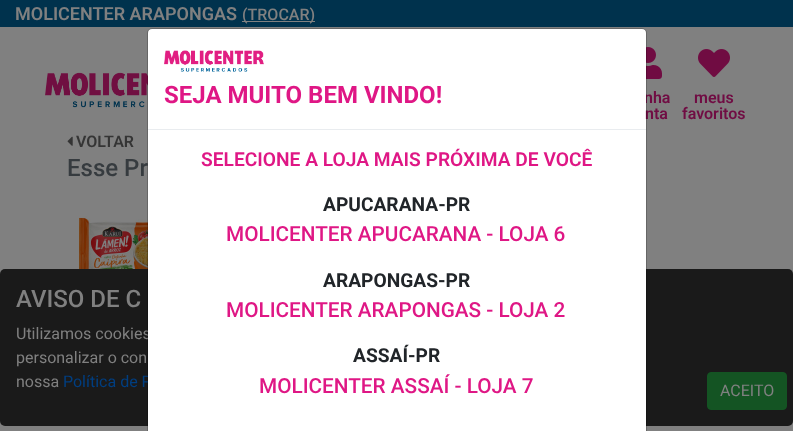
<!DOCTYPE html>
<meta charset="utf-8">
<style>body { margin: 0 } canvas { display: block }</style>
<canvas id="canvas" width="793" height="431"></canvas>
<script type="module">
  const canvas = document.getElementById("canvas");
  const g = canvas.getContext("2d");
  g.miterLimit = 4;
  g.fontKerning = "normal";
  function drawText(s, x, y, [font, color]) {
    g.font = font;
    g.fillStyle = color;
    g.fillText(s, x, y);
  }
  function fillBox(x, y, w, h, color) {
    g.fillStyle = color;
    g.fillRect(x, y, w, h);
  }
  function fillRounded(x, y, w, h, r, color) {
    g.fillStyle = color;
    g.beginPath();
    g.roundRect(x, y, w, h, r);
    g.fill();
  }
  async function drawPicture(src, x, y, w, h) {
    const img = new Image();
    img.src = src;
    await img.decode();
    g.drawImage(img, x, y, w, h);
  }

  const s1 = ["600 18px Roboto", "#808080"];
  const s2 = ["500 16px Roboto", "#808080"];
  const s3 = ["600 16px Roboto", "#700C43"];
  const s4 = ["16px Roboto", "#808080"];
  const s5 = ["16px Roboto", "#003E80"];
  const s6 = ["500 24px Roboto", "#363B3F"];
  const s7 = ["bold 24px Roboto", "#DF1785"];
  const s8 = ["600 19.2px Roboto", "#DF1785"];
  const s9 = ["bold 19.2px Roboto", "#212529"];
  const s10 = ["500 20.75px Roboto", "#DF1785"];
  const s11 = ["600 16px Roboto", "#353535"];
  const s12 = ["500 24px Roboto", "#808080"];

  fillBox(0, 0, 793, 431, "#808080");
  fillBox(0, 0, 793, 27, "#00324D");
  drawText("MOLICENTER ARAPONGAS", 15, 20, s1);
  fillBox(242, 21, 73, 1, "#808080");
  drawText("(TROCAR)", 242, 20, s2);
  drawText("nha", 644, 103, s3);
  fillRounded(0, 269, 793, 157, 5, "#1A1A1A");
  drawText("Utilizamos cookies", 16, 339, s4);
  drawText("Política de P", 63, 387, s5);
  g.fillStyle = "#FFFFFF";
  g.beginPath();
  g.roundRect(148, 29, 498, 402, [4, 4, 0, 0]);
  g.fill();
  await drawPicture("pic2.png", 45, 72, 103, 36);
  await drawPicture("pic3.png", 646, 47, 16, 32);
  drawText("nta", 645, 119, s3);
  drawText("Esse Pr", 67, 176, s6);
  await drawPicture("pic6.png", 79, 216, 69, 53);
  g.beginPath();
  g.roundRect(147.5, 28.5, 499, 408, 4.5);
  g.strokeStyle = "rgba(0, 0, 0, 0.2)";
  g.stroke();
  fillBox(148, 129, 498, 1, "#E9ECEF");
  await drawPicture("pic1.png", 164, 50, 100, 22);
  drawText("SEJA MUITO BEM VINDO!", 164, 103, s7);
  drawText("SELECIONE A LOJA MAIS PRÓXIMA DE VOCÊ", 201, 166, s8);
  drawText("APUCARANA-PR", 323, 211, s9);
  drawText("MOLICENTER APUCARANA - LOJA 6", 226, 241, s10);
  drawText("ARAPONGAS-PR", 323, 287, s9);
  drawText("MOLICENTER ARAPONGAS - LOJA 2", 226, 317, s10);
  drawText("ASSAÍ-PR", 353, 362, s9);
  drawText("MOLICENTER ASSAÍ - LOJA 7", 259, 393, s10);
  await drawPicture("pic4.png", 698, 49, 32, 28);
  drawText("meus", 694, 103, s3);
  drawText("favoritos", 682, 119, s3);
  await drawPicture("pic5.png", 67, 136, 6, 10);
  drawText("VOLTAR", 76, 147, s11);
  drawText("AVISO DE C", 16, 307, s12);
  drawText("personalizar o con", 16, 363, s4);
  drawText("nossa", 16, 387, s4);
  g.fillStyle = "#145423";
  g.beginPath();
  g.roundRect(707.5, 372.5, 79, 37, 3.5);
  g.fill();
  g.strokeStyle = "#145423";
  g.stroke();
  drawText("ACEITO", 720, 396, s4);
</script>
